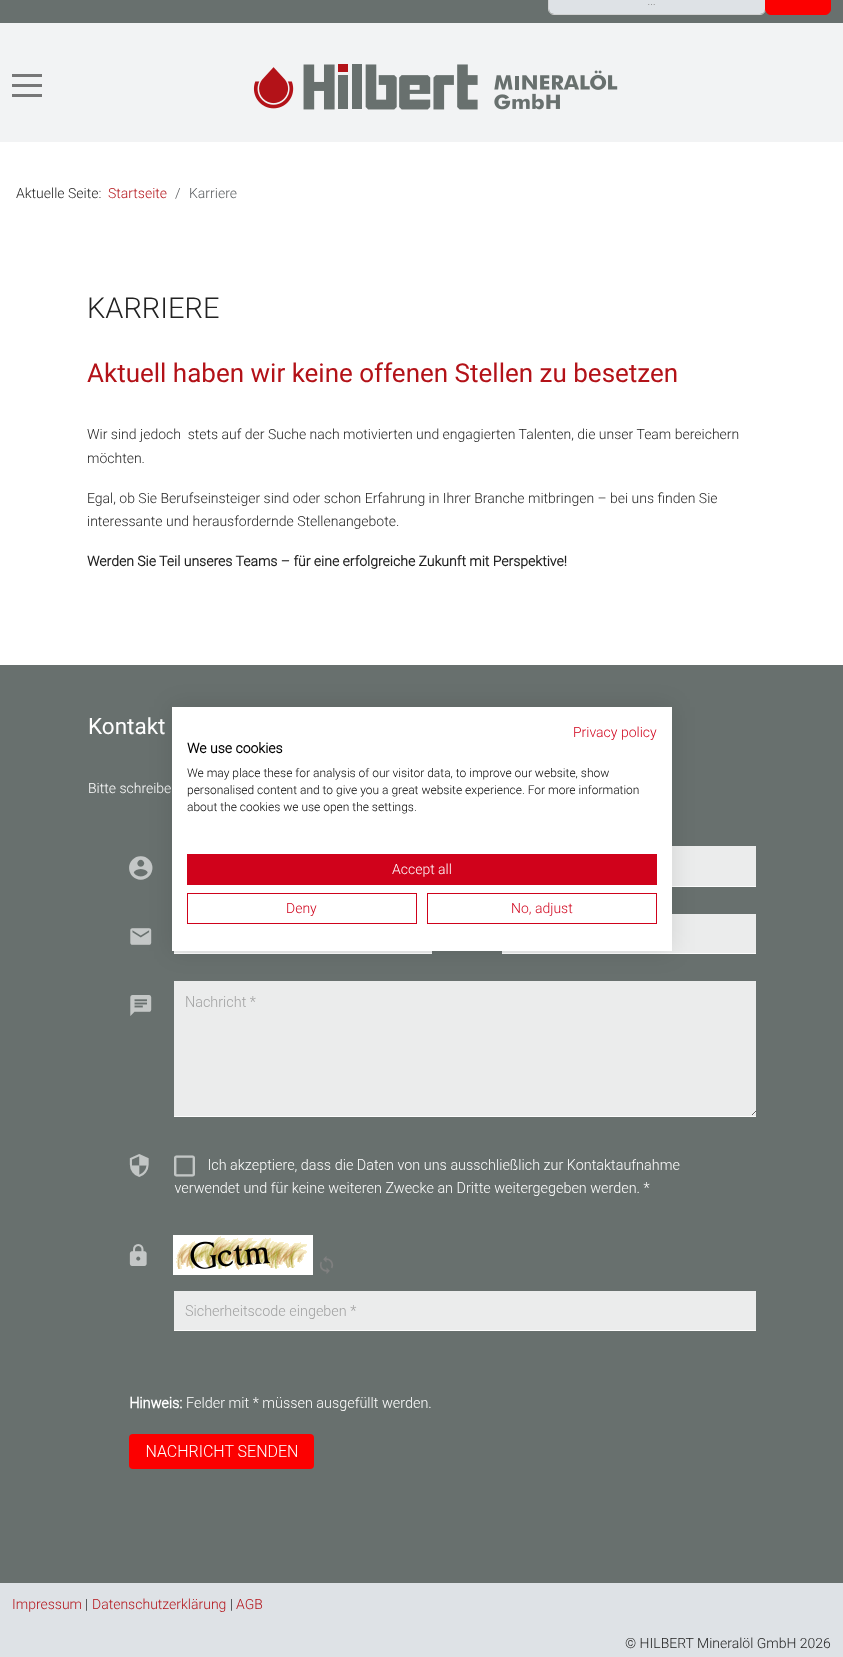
<!DOCTYPE html>
<meta charset="utf-8">
<style>body { margin: 0 } canvas { display: block }</style>
<canvas id="canvas" width="843" height="1657"></canvas>
<script type="module">
  const canvas = document.getElementById("canvas");
  const g = canvas.getContext("2d");
  g.miterLimit = 4;
  g.fontKerning = "normal";
  function drawText(s, x, y, [font, color]) {
    g.font = font;
    g.fillStyle = color;
    g.fillText(s, x, y);
  }
  function fillBox(x, y, w, h, color) {
    g.fillStyle = color;
    g.fillRect(x, y, w, h);
  }
  function fillRounded(x, y, w, h, r, color) {
    g.fillStyle = color;
    g.beginPath();
    g.roundRect(x, y, w, h, r);
    g.fill();
  }
  async function drawPicture(src, x, y, w, h) {
    const img = new Image();
    img.src = src;
    await img.decode();
    g.drawImage(img, x, y, w, h);
  }

  const s1 = ["300 14px Roboto", "#8E8E8E"];
  const s2 = ["300 14px Roboto", "#222222"];
  const s3 = ["300 14px Roboto", "#B31218"];
  const s4 = ["300 14px Roboto", "#595C5F"];
  const s5 = ["300 29px Roboto", "#222222"];
  const s6 = ["26px Roboto", "#B31218"];
  const s7 = ["bold 14px Roboto", "#222222"];
  const s8 = ["22.5px Roboto", "#FFFFFF"];
  const s9 = ["300 14px Roboto", "#FFFFFF"];
  const s10 = ["300 14px Roboto", "#D0021B"];
  const s11 = ["bold 14px Roboto", "#000000"];
  const s12 = ["300 12px Roboto", "#000000"];

  fillBox(0, 0, 843, 1657, "#DEE2E6");
  fillBox(0, 0, 843, 23, "#68706E");
  fillRounded(549, -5, 216, 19, 5, "#DEE2E6");
  g.beginPath();
  g.roundRect(548.5, -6.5, 217, 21, 5.5);
  g.strokeStyle = "rgba(221, 221, 221, 0.9)";
  g.stroke();
  drawText("…", 647, 5, s1);
  g.fillStyle = "#FC0000";
  g.beginPath();
  g.roundRect(765.5, -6.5, 65, 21, 5.5);
  g.fill();
  g.strokeStyle = "#FC0000";
  g.stroke();
  fillBox(0, 23, 843, 119, "#F2F3F4");
  fillBox(12, 84, 30, 3, "#777777");
  fillBox(12, 74, 30, 3, "#777777");
  fillBox(12, 94, 30, 3, "#777777");
  await drawPicture("pic1.png", 253, 64, 365, 46);
  fillBox(0, 142, 843, 523, "#FFFFFF");
  drawText("Aktuelle Seite:", 16, 198, s2);
  drawText("Startseite", 108, 198, s3);
  drawText("/", 175, 198, s4);
  drawText("Karriere", 189, 198, s4);
  drawText("KARRIERE", 87, 318, s5);
  drawText("Aktuell haben wir keine offenen Stellen zu besetzen", 87, 382, s6);
  drawText("Wir sind jedoch  stets auf der Suche nach motivierten und engagierten Talenten, die unser Team bereichern", 87, 439, s2);
  drawText("möchten.", 87, 463, s2);
  drawText("Egal, ob Sie Berufseinsteiger sind oder schon Erfahrung in Ihrer Branche mitbringen – bei uns finden Sie", 87, 503, s2);
  drawText("interessante und herausfordernde Stellenangebote.", 87, 526, s2);
  drawText("Werden Sie Teil unseres Teams – für eine erfolgreiche Zukunft mit Perspektive!", 87, 566, s7);
  fillBox(0, 665, 843, 918, "#68706E");
  drawText("Kontakt", 88, 734, s8);
  drawText("Bitte schreibe", 88, 793, s9);
  await drawPicture("pic2.png", 129, 846, 627, 623);
  drawText("Impressum", 12, 1609, s3);
  drawText("|", 85, 1609, s2);
  drawText("Datenschutzerklärung", 92, 1609, s3);
  drawText("|", 230, 1609, s2);
  drawText("AGB", 236, 1609, s3);
  drawText("© HILBERT Mineralöl GmbH 2026", 625, 1648, s2);
  g.fillStyle = "rgba(0, 0, 0, 0.1)";
  g.filter = "blur(12px)";
  g.beginPath();
  g.rect(172, 707, 500, 244);
  g.fill();
  g.filter = "none";
  fillBox(172, 707, 500, 244, "#FFFFFF");
  drawText("Privacy policy", 573, 737, s10);
  drawText("We use cookies", 187, 753, s11);
  drawText("We may place these for analysis of our visitor data, to improve our website, show", 187, 777, s12);
  drawText("personalised content and to give you a great website experience. For more information", 187, 794, s12);
  drawText("about the cookies we use open the settings.", 187, 811, s12);
  fillBox(187, 854, 470, 31, "#D0021B");
  drawText("Accept all", 392, 874, s9);
  g.strokeStyle = "#D0021B";
  g.strokeRect(187.5, 893.5, 229, 30);
  drawText("Deny", 286, 913, s10);
  g.strokeRect(427.5, 893.5, 229, 30);
  drawText("No, adjust", 511, 913, s10);
</script>
